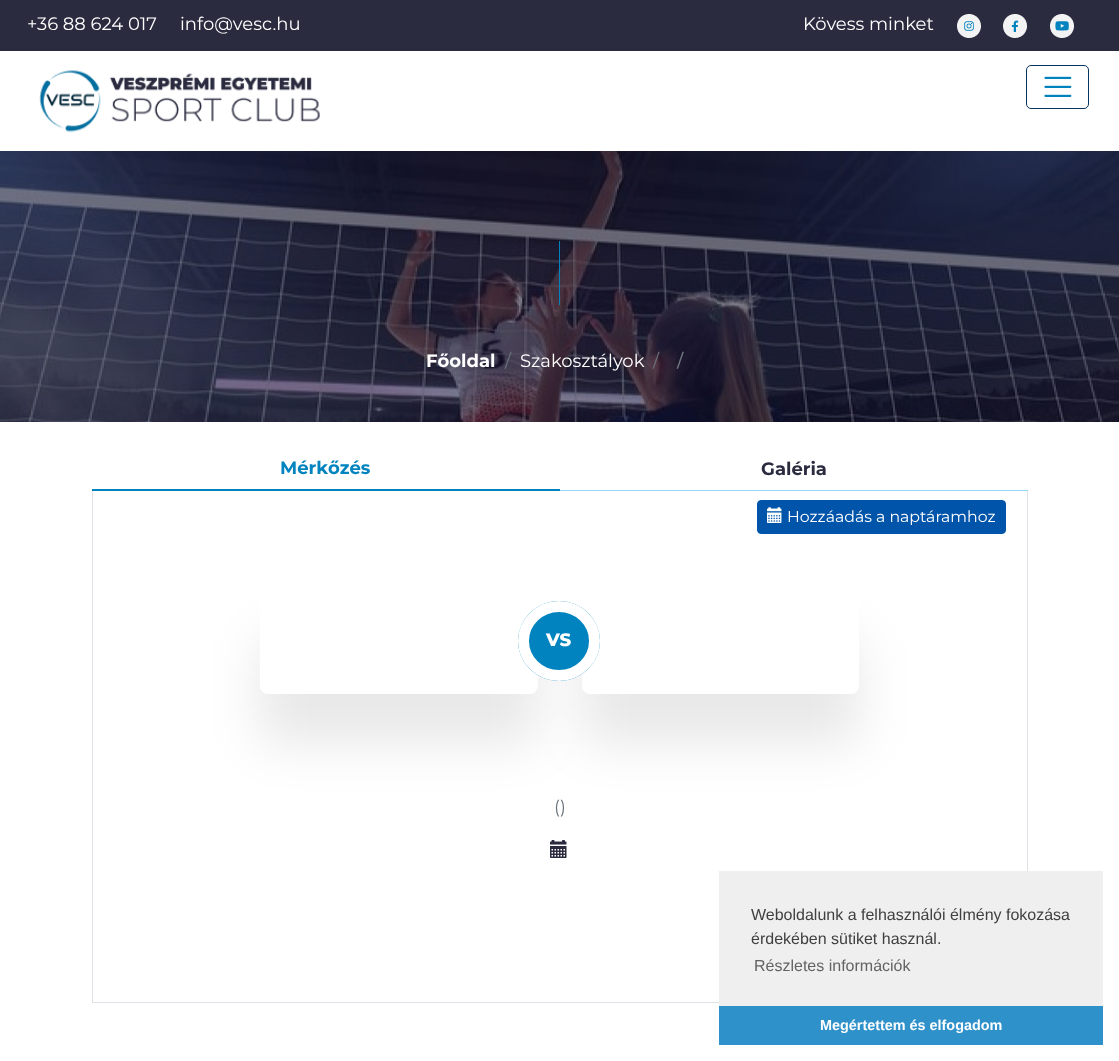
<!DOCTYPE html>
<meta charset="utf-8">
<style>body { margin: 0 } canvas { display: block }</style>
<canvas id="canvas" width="1119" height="1061"></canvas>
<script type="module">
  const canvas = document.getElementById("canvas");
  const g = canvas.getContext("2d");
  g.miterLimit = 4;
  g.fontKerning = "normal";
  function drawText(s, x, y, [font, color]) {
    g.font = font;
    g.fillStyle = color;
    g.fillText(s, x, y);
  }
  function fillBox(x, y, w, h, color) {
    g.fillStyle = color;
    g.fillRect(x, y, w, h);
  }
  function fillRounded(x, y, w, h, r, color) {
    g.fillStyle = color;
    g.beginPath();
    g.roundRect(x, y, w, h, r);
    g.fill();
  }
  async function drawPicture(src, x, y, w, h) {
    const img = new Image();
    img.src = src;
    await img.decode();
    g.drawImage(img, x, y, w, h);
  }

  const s1 = ["18px Montserrat", "#FFFFFF"];
  const s2 = ["bold 18px Montserrat", "#FFFFFF"];
  const s3 = ["18px Montserrat", "#6C757D"];
  const s4 = ["500 18px Montserrat", "#6C757D"];
  const s5 = ["bold 18px Montserrat", "#0083BE"];
  const s6 = ["bold 18px Montserrat", "#2A2B3F"];
  const s7 = ["15.75px Montserrat", "#FFFFFF"];
  const s8 = ["800 18px Montserrat", "#FFFFFF"];
  const s9 = ["16px Liberation Sans", "#404040"];
  const s10 = ["16px Liberation Sans", "#636363"];
  const s11 = ["bold 14.4px Liberation Sans", "#FFFFFF"];

  fillBox(0, 0, 1119, 1061, "#FFFFFF");
  fillBox(0, 0, 1119, 51, "#2A2B3F");
  drawText("+36 88 624 017", 27, 30, s1);
  drawText("info@vesc.hu", 180, 30, s1);
  drawText("Kövess minket", 803, 30, s1);
  await drawPicture("pic1.png", 957, 14, 24, 24);
  await drawPicture("pic2.png", 1003, 14, 24, 24);
  await drawPicture("pic3.png", 1050, 14, 24, 24);
  await drawPicture("pic4.png", 39, 70, 281, 63);
  g.beginPath();
  g.roundRect(1026.5, 65.5, 62, 43, 4.5);
  g.strokeStyle = "#073460";
  g.stroke();
  await drawPicture("pic5.png", 1044, 76, 28, 21);
  await drawPicture("pic6.png", 0, 151, 1119, 271);
  fillBox(559, 241, 1, 64, "#0083BE");
  drawText("Főoldal", 426, 367, s2);
  drawText("/", 505, 367, s3);
  drawText("Szakosztályok", 520, 367, s1);
  drawText("/", 653, 367, s3);
  drawText("/", 677, 367, s4);
  fillBox(560, 490, 468, 1, "#90D8F5");
  fillBox(92, 489, 468, 2, "#0083BE");
  drawText("Mérkőzés", 280, 474, s5);
  drawText("Galéria", 761, 475, s6);
  fillBox(1027, 491, 1, 380, "#DEE2E6");
  fillBox(92, 1002, 627, 1, "#DEE2E6");
  fillBox(92, 491, 1, 512, "#DEE2E6");
  g.fillStyle = "#0055AA";
  g.beginPath();
  g.roundRect(757.5, 500.5, 248, 33, 3.5);
  g.fill();
  g.strokeStyle = "#0055AA";
  g.stroke();
  await drawPicture("pic7.png", 767, 507, 15, 16);
  drawText("Hozzáadás a naptáramhoz", 787, 522, s7);
  g.fillStyle = "rgba(0, 0, 0, 0.09)";
  g.filter = "blur(25px)";
  g.beginPath();
  g.roundRect(260, 638, 278, 106, 8);
  g.fill();
  g.filter = "none";
  fillRounded(260, 588, 278, 106, 8, "#FFFFFF");
  g.fillStyle = "rgba(0, 0, 0, 0.09)";
  g.filter = "blur(25px)";
  g.beginPath();
  g.roundRect(582, 638, 277, 106, 8);
  g.fill();
  g.filter = "none";
  fillRounded(582, 588, 277, 106, 8, "#FFFFFF");
  g.fillStyle = "#0083BE";
  g.beginPath();
  g.ellipse(559, 641, 41, 40, 0, 0, Math.PI * 2);
  g.fill();
  g.beginPath();
  g.moveTo(559, 606.5);
  g.bezierCurveTo(578.5, 606.5, 594.5, 622, 594.5, 641);
  g.bezierCurveTo(594.5, 660, 578.5, 675.5, 559, 675.5);
  g.bezierCurveTo(539.5, 675.5, 523.5, 660, 523.5, 641);
  g.bezierCurveTo(523.5, 622, 539.5, 606.5, 559, 606.5);
  g.closePath();
  g.strokeStyle = "#FFFFFF";
  g.lineWidth = 11;
  g.stroke();
  drawText("VS", 546, 646, s8);
  drawText("()", 554, 813, s3);
  await drawPicture("pic8.png", 550, 840, 17, 18);
  fillBox(719, 871, 384, 135, "#EFEFEF");
  drawText("Weboldalunk a felhasználói élmény fokozása", 751, 920, s9);
  drawText("érdekében sütiket használ.", 751, 944, s9);
  drawText("Részletes információk", 754, 971, s10);
  fillBox(719, 1006, 384, 39, "#2F91CA");
  drawText("Megértettem és elfogadom", 820, 1030, s11);
</script>
